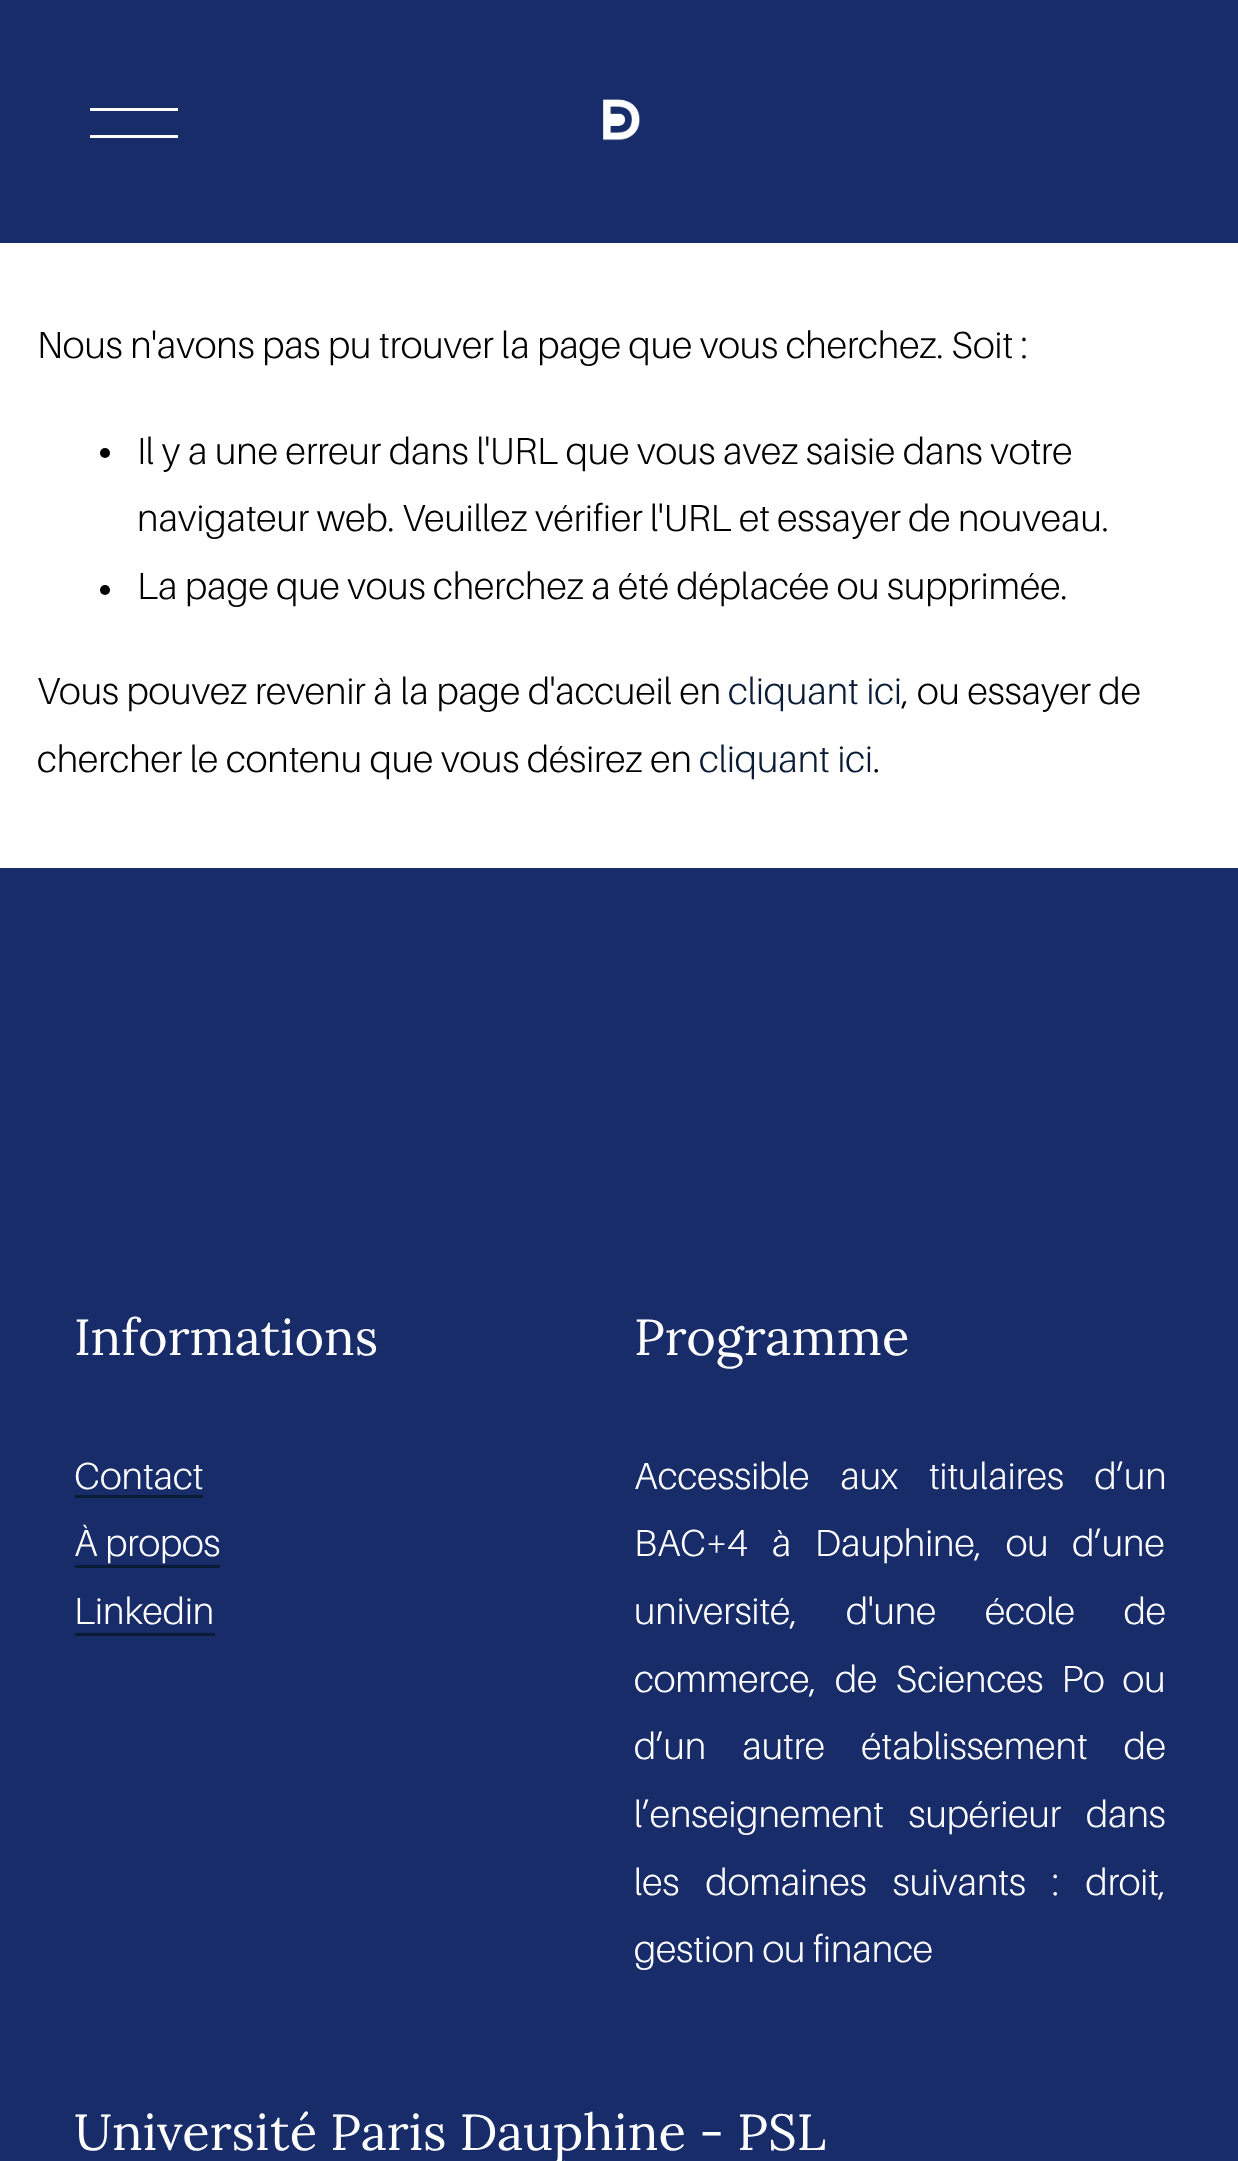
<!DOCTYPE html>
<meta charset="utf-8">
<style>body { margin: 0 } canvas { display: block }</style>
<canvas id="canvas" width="1238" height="2161"></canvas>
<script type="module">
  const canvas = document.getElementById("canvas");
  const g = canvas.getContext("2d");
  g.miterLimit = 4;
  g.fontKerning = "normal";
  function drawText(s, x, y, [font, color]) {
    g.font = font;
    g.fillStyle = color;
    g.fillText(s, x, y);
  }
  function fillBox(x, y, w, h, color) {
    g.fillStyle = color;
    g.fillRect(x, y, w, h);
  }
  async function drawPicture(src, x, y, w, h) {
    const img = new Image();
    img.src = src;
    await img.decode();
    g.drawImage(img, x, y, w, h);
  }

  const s1 = ["300 37.6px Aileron", "#000000"];
  const s2 = ["300 37.6px Aileron", "#091B35"];
  const s3 = ["50.6px Lora", "#FFFFFF"];
  const s4 = ["300 37.6px Aileron", "#FFFFFF"];

  fillBox(0, 0, 1238, 2161, "#FFFFFF");
  fillBox(0, 0, 1238, 243, "#182C6A");
  fillBox(90, 108, 88, 3, "#FFFFFF");
  fillBox(90, 135, 88, 3, "#FFFFFF");
  await drawPicture("pic1.png", 603, 99, 37, 42);
  g.wordSpacing = "-0.1px";
  drawText("Nous n'avons pas pu trouver la page que vous cherchez. Soit :", 37, 358, s1);
  g.beginPath();
  g.arc(105, 453, 5, 0, Math.PI * 2);
  g.fill();
  g.wordSpacing = "0px";
  drawText("Il y a une erreur dans l'URL que vous avez saisie dans votre", 137, 464, s1);
  g.wordSpacing = "-0.25px";
  drawText("navigateur web. Veuillez vérifier l'URL et essayer de nouveau.", 137, 531, s1);
  g.beginPath();
  g.arc(105, 590, 5, 0, Math.PI * 2);
  g.fill();
  drawText("La page que vous cherchez a été déplacée ou supprimée.", 137, 599, s1);
  g.wordSpacing = "0px";
  drawText("Vous pouvez revenir à la page d'accueil en", 37, 704, s1);
  drawText("cliquant ici", 728, 704, s2);
  drawText(", ou essayer de", 902, 704, s1);
  drawText("chercher le", 37, 772, s1);
  drawText("contenu que vous désirez en", 226, 772, s1);
  drawText("cliquant ici", 699, 772, s2);
  drawText(".", 873, 772, s1);
  fillBox(0, 868, 1238, 1293, "#182C6A");
  drawText("Informations", 74, 1355, s3);
  drawText("Contact", 74, 1489, s4);
  fillBox(75, 1495, 128, 3, "#091B35");
  drawText("À propos", 74, 1556, s4);
  fillBox(75, 1565, 145, 3, "#091B35");
  drawText("Linkedin", 74, 1624, s4);
  fillBox(75, 1633, 140, 3, "#091B35");
  drawText("Programme", 634, 1355, s3);
  g.wordSpacing = "23px";
  drawText("Accessible aux titulaires d’un", 634, 1489, s4);
  g.wordSpacing = "16px";
  drawText("BAC+4 à Dauphine, ou d’une", 634, 1556, s4);
  g.wordSpacing = "41px";
  drawText("université, d'une école de", 634, 1624, s4);
  g.wordSpacing = "10.5px";
  drawText("commerce, de Sciences Po ou", 634, 1692, s4);
  g.wordSpacing = "28.5px";
  drawText("d’un autre établissement de", 634, 1759, s4);
  g.wordSpacing = "17px";
  drawText("l’enseignement supérieur dans", 634, 1827, s4);
  g.wordSpacing = "18.5px";
  drawText("les domaines suivants : droit,", 634, 1895, s4);
  g.wordSpacing = "0px";
  drawText("gestion ou finance", 634, 1962, s4);
  drawText("Université Paris Dauphine - PSL", 74, 2150, s3);
</script>
